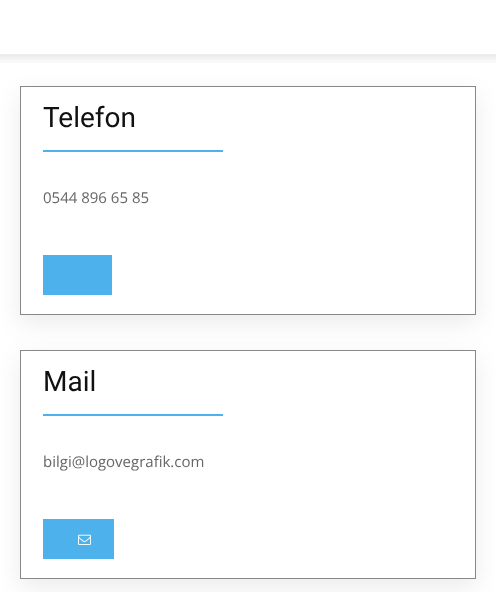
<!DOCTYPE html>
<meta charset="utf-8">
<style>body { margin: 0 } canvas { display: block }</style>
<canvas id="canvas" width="496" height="592"></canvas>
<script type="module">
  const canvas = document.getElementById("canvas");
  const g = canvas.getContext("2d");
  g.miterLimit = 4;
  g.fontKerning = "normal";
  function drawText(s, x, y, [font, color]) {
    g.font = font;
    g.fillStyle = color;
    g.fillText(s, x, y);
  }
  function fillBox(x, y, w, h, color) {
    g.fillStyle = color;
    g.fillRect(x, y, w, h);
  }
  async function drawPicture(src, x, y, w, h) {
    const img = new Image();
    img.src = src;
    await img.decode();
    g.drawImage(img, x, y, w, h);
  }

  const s1 = ["28px Roboto", "#111111"];
  const s2 = ["15px Open Sans", "#666666"];

  fillBox(0, 0, 496, 592, "#FFFFFF");
  g.save();
  g.beginPath();
  g.moveTo(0, 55);
  g.lineTo(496, 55);
  g.lineTo(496, 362);
  g.lineTo(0, 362);
  g.closePath();
  g.moveTo(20, 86);
  g.lineTo(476, 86);
  g.lineTo(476, 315);
  g.lineTo(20, 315);
  g.closePath();
  g.clip("evenodd");
  g.fillStyle = "rgba(0, 0, 0, 0.08)";
  g.filter = "blur(12.5px)";
  g.beginPath();
  g.rect(20, 94, 456, 229);
  g.fill();
  g.filter = "none";
  g.restore();
  await drawPicture("pic1.png", 0, 54, 496, 9);
  g.strokeStyle = "#888888";
  g.strokeRect(20.5, 86.5, 455, 228);
  drawText("Telefon", 43, 127, s1);
  fillBox(43, 150, 180, 2, "#4DB2EC");
  drawText("0544 896 65 85", 43, 203, s2);
  fillBox(43, 255, 69, 40, "#4DB2EC");
  g.save();
  g.beginPath();
  g.moveTo(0, 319);
  g.lineTo(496, 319);
  g.lineTo(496, 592);
  g.lineTo(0, 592);
  g.closePath();
  g.moveTo(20, 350);
  g.lineTo(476, 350);
  g.lineTo(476, 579);
  g.lineTo(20, 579);
  g.closePath();
  g.clip("evenodd");
  g.fillStyle = "rgba(0, 0, 0, 0.08)";
  g.filter = "blur(12.5px)";
  g.beginPath();
  g.rect(20, 358, 456, 229);
  g.fill();
  g.filter = "none";
  g.restore();
  g.strokeRect(20.5, 350.5, 455, 228);
  drawText("Mail", 43, 391, s1);
  fillBox(43, 414, 180, 2, "#4DB2EC");
  drawText("bilgi@logovegrafik.com", 43, 467, s2);
  fillBox(43, 519, 71, 40, "#4DB2EC");
  await drawPicture("pic2.png", 78, 534, 13, 11);
</script>
